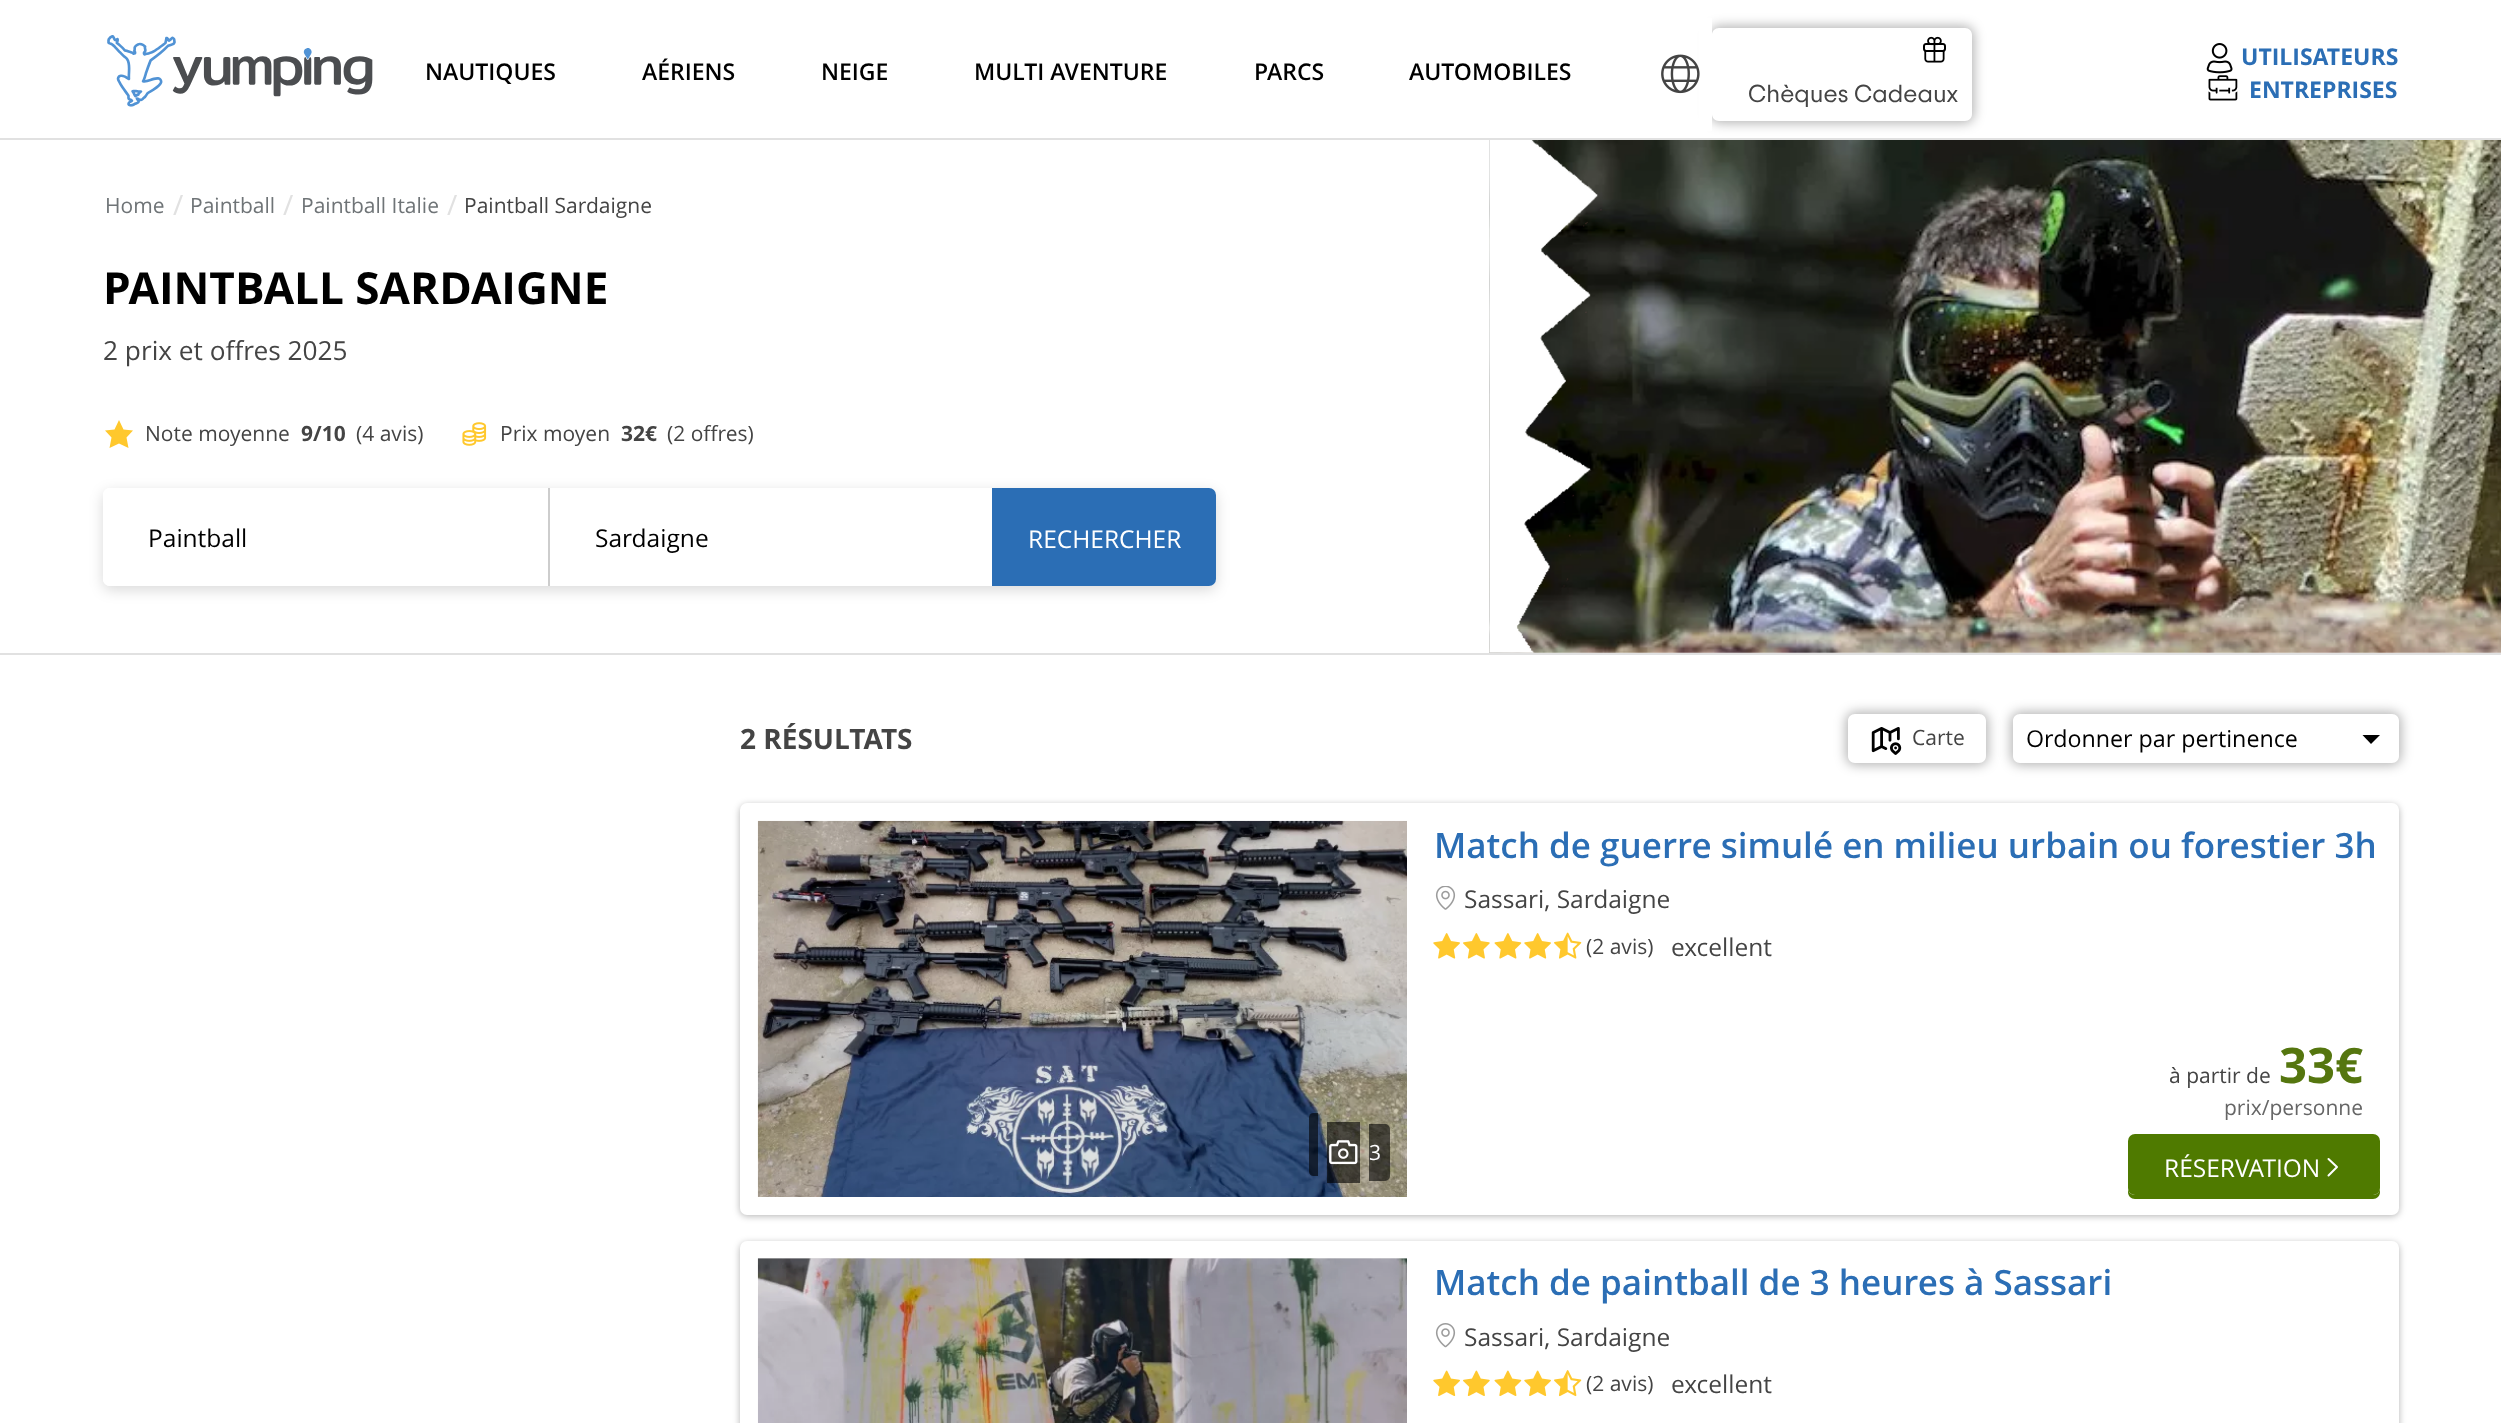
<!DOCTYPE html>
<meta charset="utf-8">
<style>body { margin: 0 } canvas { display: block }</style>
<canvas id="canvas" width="2501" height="1423"></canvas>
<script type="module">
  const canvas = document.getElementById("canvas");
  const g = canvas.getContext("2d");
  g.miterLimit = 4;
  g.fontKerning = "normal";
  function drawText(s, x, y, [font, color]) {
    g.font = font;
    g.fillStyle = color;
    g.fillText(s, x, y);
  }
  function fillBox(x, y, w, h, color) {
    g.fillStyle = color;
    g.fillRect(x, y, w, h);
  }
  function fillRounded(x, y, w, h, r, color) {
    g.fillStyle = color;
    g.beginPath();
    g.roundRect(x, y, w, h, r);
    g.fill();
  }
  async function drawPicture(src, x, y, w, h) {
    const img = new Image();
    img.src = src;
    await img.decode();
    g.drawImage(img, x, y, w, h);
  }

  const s1 = ["600 23px Open Sans", "#000000"];
  const s2 = ["24.5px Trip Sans", "#444444"];
  const s3 = ["bold 23px Open Sans", "#2B6EB5"];
  const s4 = ["21px Open Sans", "#6F7477"];
  const s5 = ["28px Open Sans", "#E1E1E1"];
  const s6 = ["21px Open Sans", "#444444"];
  const s7 = ["bold 44.1px Open Sans", "#000000"];
  const s8 = ["26.25px Open Sans", "#444444"];
  const s9 = ["bold 21px Open Sans", "#444444"];
  const s10 = ["24.5px Open Sans", "#000000"];
  const s11 = ["24.5px Open Sans", "#FFFFFF"];
  const s12 = ["bold 28px Open Sans", "#444444"];
  const s13 = ["23.25px Open Sans", "#000000"];
  const s14 = ["21px Open Sans", "#FFFFFF"];
  const s15 = ["600 35px Open Sans", "#2B6EB5"];
  const s16 = ["24.5px Open Sans", "#444444"];
  const s17 = ["bold 49px Open Sans", "#55760F"];
  const s18 = ["21px Open Sans", "#666666"];

  fillBox(0, 0, 2501, 1423, "#FFFFFF");
  await drawPicture("pic1.png", 107, 35, 266, 72);
  g.save();
  g.beginPath();
  g.moveTo(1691, 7);
  g.lineTo(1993, 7);
  g.lineTo(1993, 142);
  g.lineTo(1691, 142);
  g.closePath();
  g.moveTo(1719, 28);
  g.lineTo(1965, 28);
  g.bezierCurveTo(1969, 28, 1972, 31, 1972, 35);
  g.lineTo(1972, 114);
  g.bezierCurveTo(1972, 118, 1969, 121, 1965, 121);
  g.lineTo(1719, 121);
  g.bezierCurveTo(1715, 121, 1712, 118, 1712, 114);
  g.lineTo(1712, 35);
  g.bezierCurveTo(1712, 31, 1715, 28, 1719, 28);
  g.closePath();
  g.clip("evenodd");
  g.fillStyle = "rgba(0, 0, 0, 0.3)";
  g.filter = "blur(6px)";
  g.beginPath();
  g.roundRect(1710, 26, 264, 97, 9);
  g.fill();
  g.filter = "none";
  g.restore();
  fillBox(1699, 18, 13, 113, "#FFFFFF");
  drawText("NAUTIQUES", 425, 80, s1);
  drawText("AÉRIENS", 642, 80, s1);
  drawText("NEIGE", 821, 80, s1);
  drawText("MULTI AVENTURE", 974, 80, s1);
  drawText("PARCS", 1254, 80, s1);
  drawText("AUTOMOBILES", 1409, 80, s1);
  await drawPicture("pic2.png", 1661, 54, 39, 40);
  await drawPicture("pic3.png", 1923, 36, 23, 27);
  drawText("Chèques Cadeaux", 1748, 102, s2);
  await drawPicture("pic4.png", 2206, 43, 27, 31);
  drawText("UTILISATEURS", 2241, 65, s3);
  await drawPicture("pic5.png", 2208, 75, 30, 26);
  drawText("ENTREPRISES", 2249, 98, s3);
  fillBox(0, 138, 2501, 2, "#E1E1E1");
  drawText("Home", 105, 213, s4);
  drawText("/", 173, 215, s5);
  drawText("Paintball", 190, 213, s4);
  drawText("/", 283, 215, s5);
  drawText("Paintball Italie", 301, 213, s4);
  drawText("/", 447, 215, s5);
  drawText("Paintball Sardaigne", 464, 213, s6);
  await drawPicture("pic6.png", 1489, 140, 1012, 513);
  drawText("PAINTBALL SARDAIGNE", 103, 304, s7);
  drawText("2 prix et offres 2025", 103, 360, s8);
  g.fillStyle = "#FFC82D";
  g.beginPath();
  g.moveTo(119, 420);
  g.lineTo(123.5, 429.5);
  g.lineTo(133, 430.5);
  g.lineTo(126.5, 437.5);
  g.lineTo(128.5, 448);
  g.lineTo(119, 443.5);
  g.lineTo(109.5, 448);
  g.lineTo(111.5, 437.5);
  g.lineTo(105, 430.5);
  g.lineTo(114.5, 429.5);
  g.closePath();
  g.fill();
  drawText("Note moyenne", 145, 441, s6);
  drawText("9/10", 301, 441, s9);
  drawText("(4 avis)", 356, 441, s6);
  await drawPicture("pic7.png", 462, 422, 25, 24);
  drawText("Prix moyen", 500, 441, s6);
  drawText("32€", 621, 441, s9);
  drawText("(2 offres)", 667, 441, s6);
  g.save();
  g.beginPath();
  g.moveTo(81, 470);
  g.lineTo(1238, 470);
  g.lineTo(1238, 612);
  g.lineTo(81, 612);
  g.closePath();
  g.moveTo(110, 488);
  g.lineTo(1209, 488);
  g.bezierCurveTo(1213, 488, 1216, 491, 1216, 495);
  g.lineTo(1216, 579);
  g.bezierCurveTo(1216, 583, 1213, 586, 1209, 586);
  g.lineTo(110, 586);
  g.bezierCurveTo(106, 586, 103, 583, 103, 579);
  g.lineTo(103, 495);
  g.bezierCurveTo(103, 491, 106, 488, 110, 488);
  g.closePath();
  g.clip("evenodd");
  g.fillStyle = "rgba(0, 0, 0, 0.15)";
  g.filter = "blur(7px)";
  g.beginPath();
  g.roundRect(103, 492, 1113, 98, 7);
  g.fill();
  g.filter = "none";
  g.restore();
  g.fillStyle = "#FFFFFF";
  g.beginPath();
  g.roundRect(103, 488, 445, 98, [7, 0, 0, 7]);
  g.fill();
  drawText("Paintball", 148, 547, s10);
  g.fillStyle = "#FFFFFF";
  g.beginPath();
  g.roundRect(548, 488, 444, 98, [0, 7, 7, 0]);
  g.fill();
  fillBox(548, 488, 2, 98, "#CDCDCD");
  drawText("Sardaigne", 595, 547, s10);
  g.fillStyle = "#2B6EB5";
  g.beginPath();
  g.roundRect(992, 488, 224, 98, [0, 7, 7, 0]);
  g.fill();
  drawText("RECHERCHER", 1028, 548, s11);
  fillBox(0, 653, 2501, 2, "#E1E1E1");
  drawText("2 RÉSULTATS", 740, 749, s12);
  g.save();
  g.beginPath();
  g.moveTo(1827, 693);
  g.lineTo(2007, 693);
  g.lineTo(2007, 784);
  g.lineTo(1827, 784);
  g.closePath();
  g.moveTo(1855, 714);
  g.lineTo(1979, 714);
  g.bezierCurveTo(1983, 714, 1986, 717, 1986, 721);
  g.lineTo(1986, 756);
  g.bezierCurveTo(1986, 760, 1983, 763, 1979, 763);
  g.lineTo(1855, 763);
  g.bezierCurveTo(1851, 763, 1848, 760, 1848, 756);
  g.lineTo(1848, 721);
  g.bezierCurveTo(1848, 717, 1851, 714, 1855, 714);
  g.closePath();
  g.clip("evenodd");
  g.fillStyle = "rgba(0, 0, 0, 0.3)";
  g.filter = "blur(6px)";
  g.beginPath();
  g.roundRect(1846, 712, 142, 53, 9);
  g.fill();
  g.filter = "none";
  g.restore();
  await drawPicture("pic8.png", 1871, 727, 31, 28);
  drawText("Carte", 1912, 745, s6);
  g.save();
  g.beginPath();
  g.moveTo(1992, 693);
  g.lineTo(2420, 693);
  g.lineTo(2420, 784);
  g.lineTo(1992, 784);
  g.closePath();
  g.moveTo(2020, 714);
  g.lineTo(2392, 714);
  g.bezierCurveTo(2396, 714, 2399, 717, 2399, 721);
  g.lineTo(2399, 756);
  g.bezierCurveTo(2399, 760, 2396, 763, 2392, 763);
  g.lineTo(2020, 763);
  g.bezierCurveTo(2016, 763, 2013, 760, 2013, 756);
  g.lineTo(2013, 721);
  g.bezierCurveTo(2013, 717, 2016, 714, 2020, 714);
  g.closePath();
  g.clip("evenodd");
  g.fillStyle = "rgba(0, 0, 0, 0.3)";
  g.filter = "blur(6px)";
  g.beginPath();
  g.roundRect(2011, 712, 390, 53, 9);
  g.fill();
  g.filter = "none";
  g.restore();
  g.fillStyle = "#000000";
  g.beginPath();
  g.moveTo(2362.5, 735);
  g.lineTo(2371, 744);
  g.lineTo(2380, 735);
  g.closePath();
  g.fill();
  drawText("Ordonner par pertinence", 2026, 747, s13);
  g.fillStyle = "rgba(0, 0, 0, 0.3)";
  g.filter = "blur(3.5px)";
  g.beginPath();
  g.roundRect(740, 805, 1659, 411, 7);
  g.fill();
  g.filter = "none";
  fillRounded(740, 803, 1659, 412, 7, "#FFFFFF");
  await drawPicture("pic9.png", 757, 820, 650, 377);
  fillBox(1327, 1122, 33, 61, "rgba(0, 0, 0, 0.6)");
  await drawPicture("pic10.png", 1329, 1140, 29, 25);
  g.beginPath();
  g.roundRect(1369, 1124, 21, 57, [0, 5, 5, 0]);
  g.fill();
  drawText("3", 1369, 1160, s14);
  g.fillStyle = "rgba(0, 0, 0, 0.6)";
  g.beginPath();
  g.roundRect(1309, 1113, 9, 63, [4.5, 0, 0, 4.5]);
  g.fill();
  drawText("Match de guerre simulé en milieu urbain ou forestier 3h", 1434, 858, s15);
  await drawPicture("pic11.png", 1435, 886, 21, 24);
  drawText("Sassari, Sardaigne", 1464, 908, s16);
  await drawPicture("pic12.png", 1433, 933, 27, 26);
  await drawPicture("pic13.png", 1463, 933, 27, 26);
  await drawPicture("pic14.png", 1494, 933, 28, 26);
  await drawPicture("pic12.png", 1524, 933, 27, 26);
  await drawPicture("pic15.png", 1554, 932, 28, 27);
  drawText("(2 avis)", 1586, 954, s6);
  drawText("excellent", 1671, 956, s16);
  drawText("à partir de", 2169, 1083, s6);
  drawText("33€", 2279, 1083, s17);
  drawText("prix/personne", 2224, 1115, s18);
  g.fillStyle = "#4F7A00";
  g.beginPath();
  g.moveTo(2128, 1188);
  g.lineTo(2128, 1192);
  g.bezierCurveTo(2128, 1196, 2131, 1199, 2135, 1199);
  g.lineTo(2373, 1199);
  g.bezierCurveTo(2377, 1199, 2380, 1196, 2380, 1192);
  g.lineTo(2380, 1188);
  g.bezierCurveTo(2380, 1192, 2377, 1195, 2373, 1195);
  g.lineTo(2135, 1195);
  g.bezierCurveTo(2131, 1195, 2128, 1192, 2128, 1188);
  g.closePath();
  g.fill();
  fillRounded(2128, 1134, 252, 61, 7, "#4F7A00");
  drawText("RÉSERVATION", 2164, 1177, s11);
  g.beginPath();
  g.moveTo(2328.5, 1159);
  g.lineTo(2337, 1167);
  g.lineTo(2328.5, 1175.5);
  g.strokeStyle = "#FFFFFF";
  g.lineWidth = 2;
  g.lineCap = "round";
  g.lineJoin = "round";
  g.stroke();
  g.fillStyle = "rgba(0, 0, 0, 0.3)";
  g.filter = "blur(3.5px)";
  g.beginPath();
  g.roundRect(740, 1243, 1659, 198, 7);
  g.fill();
  g.filter = "none";
  fillRounded(740, 1241, 1659, 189, 7, "#FFFFFF");
  fillBox(758, 1258, 649, 1, "#E0E0E0");
  await drawPicture("pic16.png", 757, 1258, 650, 165);
  drawText("Match de paintball de 3 heures à Sassari", 1434, 1295, s15);
  await drawPicture("pic17.png", 1435, 1323, 21, 25);
  drawText("Sassari, Sardaigne", 1464, 1346, s16);
  await drawPicture("pic18.png", 1433, 1370, 27, 26);
  await drawPicture("pic19.png", 1463, 1370, 27, 26);
  await drawPicture("pic20.png", 1494, 1370, 28, 26);
  await drawPicture("pic18.png", 1524, 1370, 27, 26);
  await drawPicture("pic21.png", 1554, 1370, 28, 27);
  drawText("(2 avis)", 1586, 1391, s6);
  drawText("excellent", 1671, 1393, s16);
</script>
